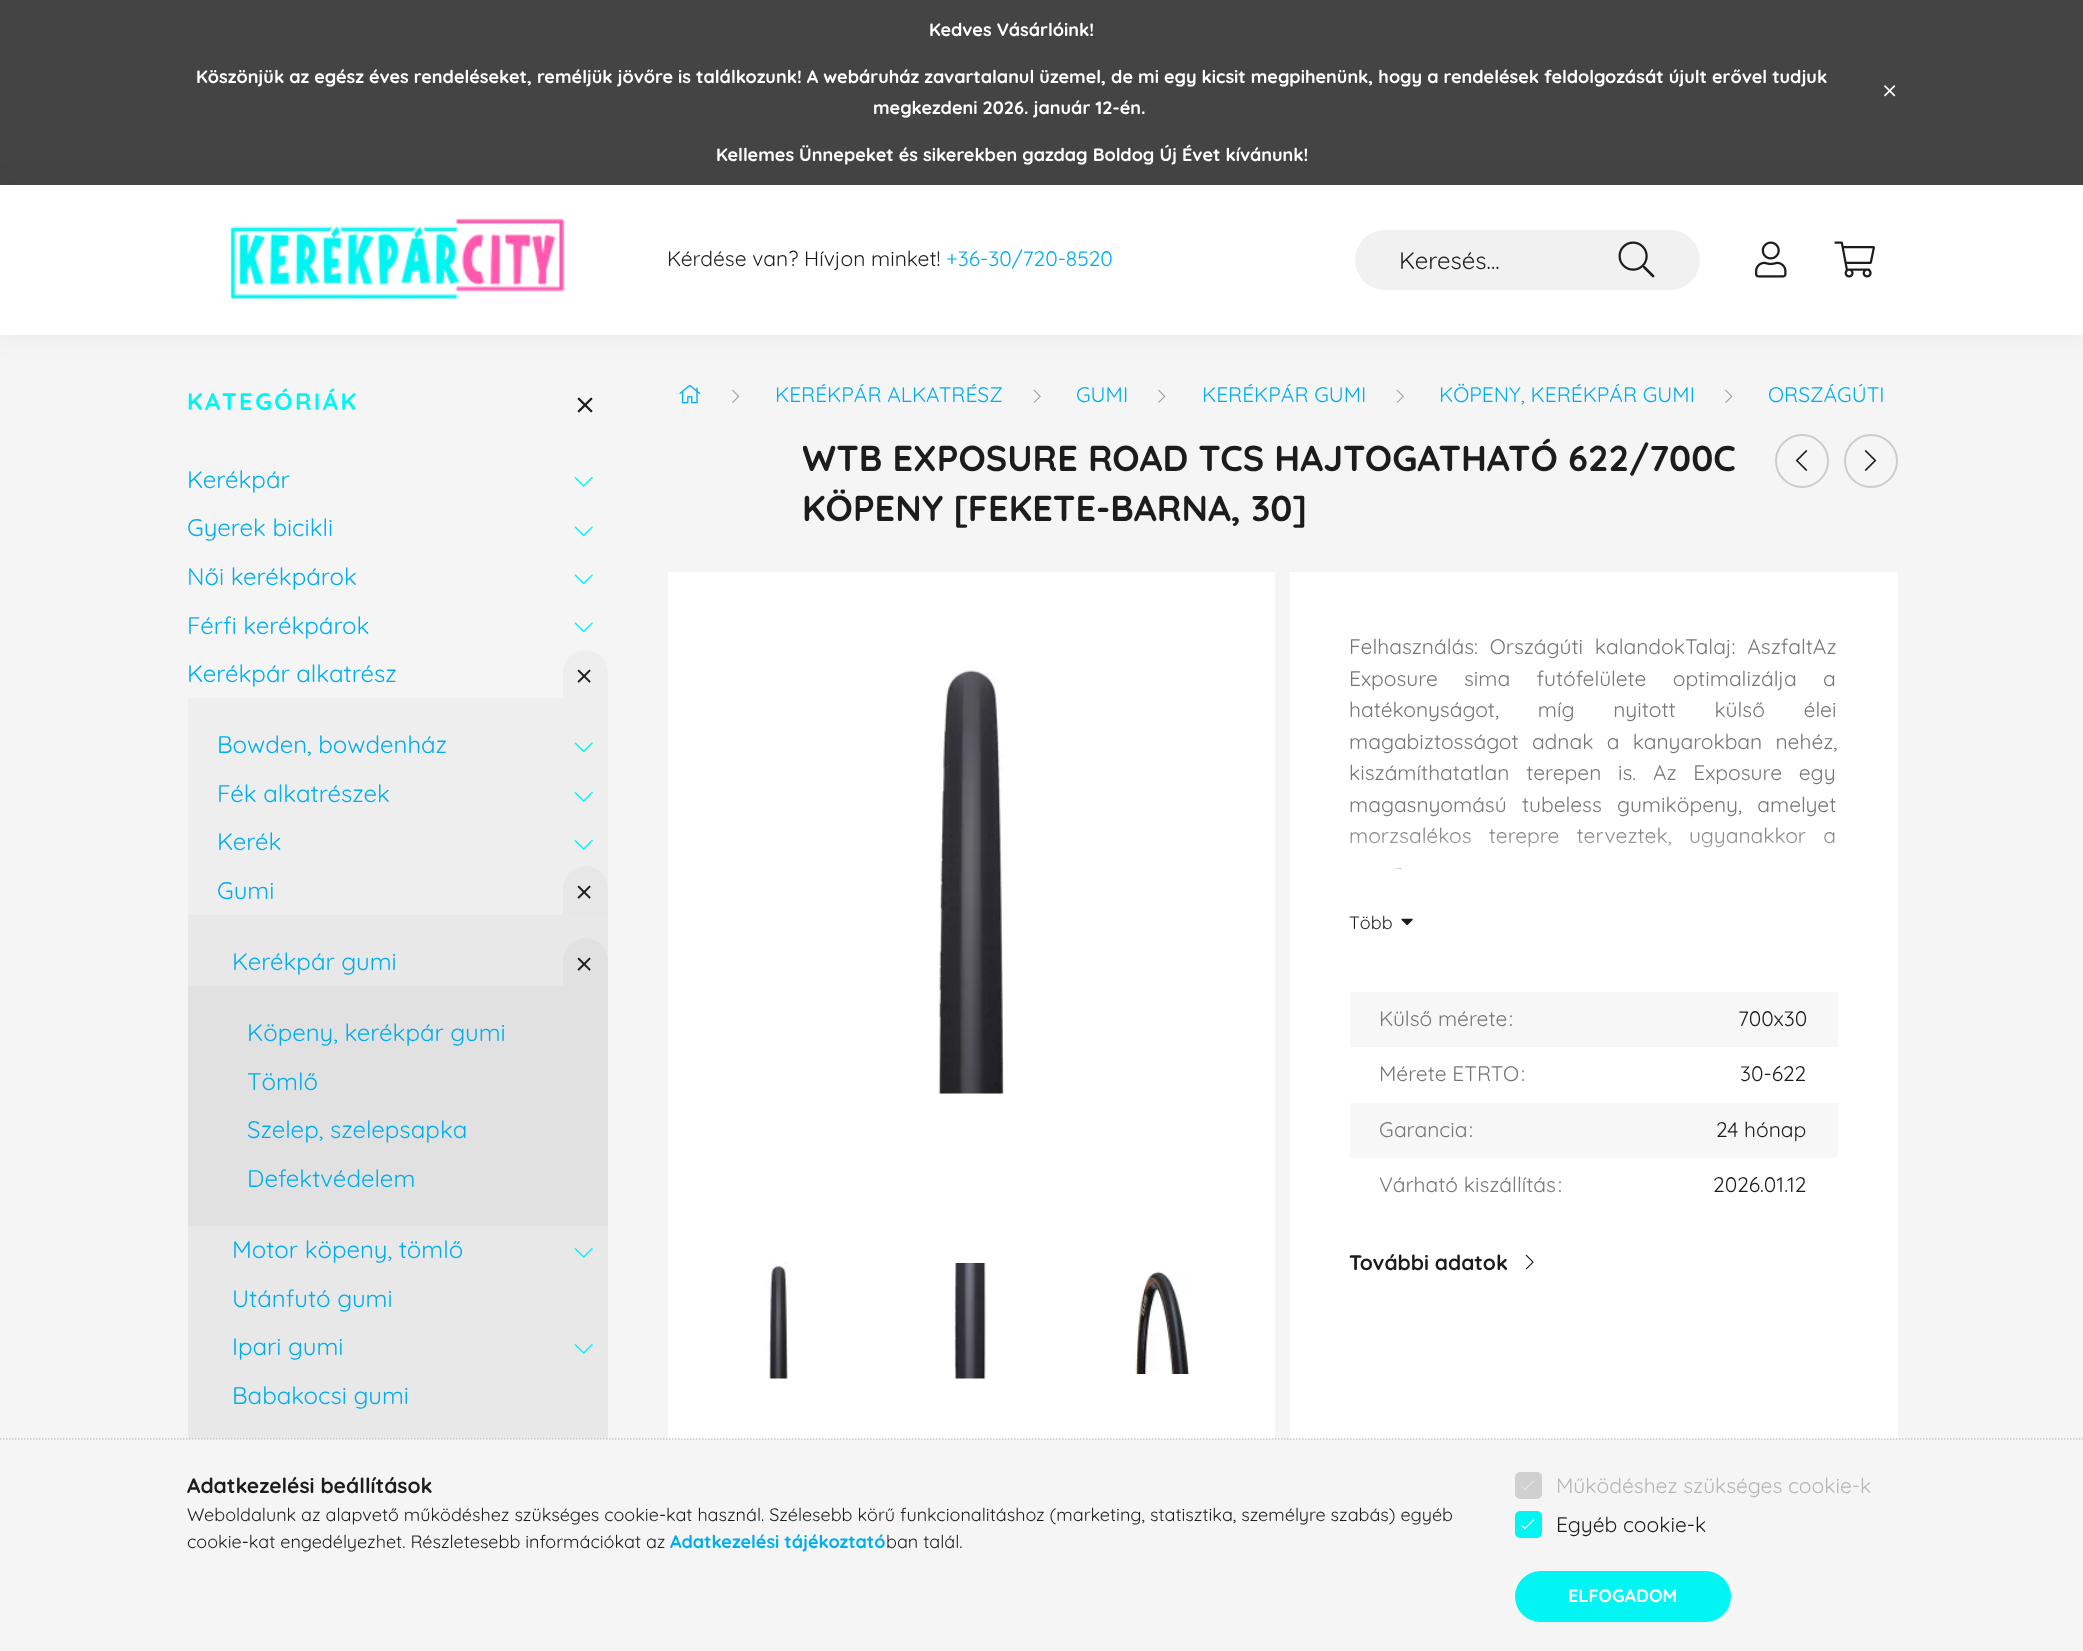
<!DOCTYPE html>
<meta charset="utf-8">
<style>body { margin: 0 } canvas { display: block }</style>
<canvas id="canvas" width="2083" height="1651"></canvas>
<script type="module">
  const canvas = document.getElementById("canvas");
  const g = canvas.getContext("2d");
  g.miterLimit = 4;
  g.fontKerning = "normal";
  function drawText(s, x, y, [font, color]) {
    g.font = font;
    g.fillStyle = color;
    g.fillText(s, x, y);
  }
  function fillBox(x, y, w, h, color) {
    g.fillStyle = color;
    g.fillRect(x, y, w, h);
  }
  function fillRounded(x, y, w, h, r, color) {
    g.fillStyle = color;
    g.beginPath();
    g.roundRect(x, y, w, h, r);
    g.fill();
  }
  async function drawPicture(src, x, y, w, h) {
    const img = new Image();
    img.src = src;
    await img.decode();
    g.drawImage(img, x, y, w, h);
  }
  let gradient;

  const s1 = ["bold 18px Quicksand", "#FFFFFF"];
  const s2 = ["21px Quicksand", "#1C1C1C"];
  const s3 = ["21px Quicksand", "#00AEED"];
  const s4 = ["24px Quicksand", "#1C1C1C"];
  const s5 = ["bold 24px Quicksand", "#00F5F3"];
  const s6 = ["24px Quicksand", "#00AEED"];
  const s7 = ["bold 36px Quicksand", "#1C1C1C"];
  const s8 = ["21px Quicksand", "#777777"];
  const s9 = ["18px Quicksand", "#1C1C1C"];
  const s10 = ["bold 21px Quicksand", "#1C1C1C"];
  const s11 = ["bold 18px Quicksand", "#00AEED"];
  const s12 = ["21px Quicksand", "#B6B6B6"];

  fillBox(0, 0, 2083, 1651, "#F5F5F5");
  fillBox(0, 0, 2083, 185, "#444444");
  drawText("Kedves Vásárlóink!", 929, 36, s1);
  drawText("Köszönjük az egész éves rendeléseket, reméljük jövőre is találkozunk! A webáruház zavartalanul üzemel, de mi egy kicsit megpihenünk, hogy a rendelések feldolgozását újult erővel tudjuk", 196, 83, s1);
  drawText("megkezdeni 2026. január 12-én.", 873, 114, s1);
  await drawPicture("pic1.png", 1884, 85, 12, 12);
  drawText("Kellemes Ünnepeket és sikerekben gazdag Boldog Új Évet kívánunk!", 716, 161, s1);
  g.fillStyle = "rgba(0, 0, 0, 0.05)";
  g.filter = "blur(15px)";
  g.beginPath();
  g.rect(0, 185, 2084, 150);
  g.fill();
  g.filter = "none";
  fillBox(0, 185, 2083, 150, "#FFFFFF");
  await drawPicture("pic2.png", 230, 218, 335, 81);
  drawText("Kérdése van? Hívjon minket!", 667, 266, s2);
  drawText("+36-30/720-8520", 946, 266, s3);
  fillRounded(1355, 230, 345, 60, 30, "#F1F1F1");
  drawText("Keresés...", 1399, 269, s4);
  await drawPicture("pic3.png", 1618, 241, 37, 37);
  await drawPicture("pic4.png", 1755, 241, 32, 37);
  await drawPicture("pic5.png", 1834, 241, 41, 37);
  g.letterSpacing = "2.4px";
  drawText("KATEGÓRIÁK", 187, 410, s5);
  await drawPicture("pic6.png", 577, 397, 16, 16);
  g.letterSpacing = "0px";
  drawText("Kerékpár", 187, 488, s6);
  await drawPicture("pic7.png", 574, 476, 19, 11);
  drawText("Gyerek bicikli", 187, 536, s6);
  await drawPicture("pic8.png", 574, 526, 19, 11);
  drawText("Női kerékpárok", 187, 585, s6);
  await drawPicture("pic8.png", 574, 574, 19, 11);
  drawText("Férfi kerékpárok", 187, 634, s6);
  await drawPicture("pic8.png", 574, 622, 19, 11);
  drawText("Kerékpár alkatrész", 187, 682, s6);
  g.fillStyle = "#EEEEEE";
  g.beginPath();
  g.roundRect(563, 650, 45, 48, [22.5, 22.5, 0, 0]);
  g.fill();
  await drawPicture("pic9.png", 577, 669, 14, 14);
  fillBox(188, 698, 420, 217, "#EEEEEE");
  drawText("Bowden, bowdenház", 217, 753, s6);
  await drawPicture("pic10.png", 574, 742, 19, 11);
  drawText("Fék alkatrészek", 217, 802, s6);
  await drawPicture("pic11.png", 574, 791, 19, 11);
  drawText("Kerék", 217, 850, s6);
  await drawPicture("pic11.png", 574, 839, 19, 11);
  drawText("Gumi", 217, 899, s6);
  g.fillStyle = "#E7E7E7";
  g.beginPath();
  g.roundRect(563, 866, 45, 49, [22.5, 22.5, 0, 0]);
  g.fill();
  await drawPicture("pic12.png", 577, 885, 14, 14);
  fillBox(188, 915, 420, 524, "#E8E8E8");
  drawText("Kerékpár gumi", 232, 970, s6);
  g.fillStyle = "#E1E1E1";
  g.beginPath();
  g.roundRect(563, 938, 45, 48, [22.5, 22.5, 0, 0]);
  g.fill();
  await drawPicture("pic13.png", 577, 957, 14, 14);
  fillBox(188, 986, 420, 240, "#E1E1E1");
  drawText("Köpeny, kerékpár gumi", 247, 1041, s6);
  drawText("Tömlő", 247, 1090, s6);
  drawText("Szelep, szelepsapka", 247, 1138, s6);
  drawText("Defektvédelem", 247, 1187, s6);
  drawText("Motor köpeny, tömlő", 232, 1258, s6);
  await drawPicture("pic14.png", 574, 1247, 19, 11);
  drawText("Utánfutó gumi", 232, 1307, s6);
  drawText("Ipari gumi", 232, 1355, s6);
  await drawPicture("pic14.png", 574, 1343, 19, 11);
  drawText("Babakocsi gumi", 232, 1404, s6);
  await drawPicture("pic15.png", 679, 384, 22, 20);
  await drawPicture("pic16.png", 732, 389, 8, 14);
  drawText("KERÉKPÁR ALKATRÉSZ", 775, 402, s3);
  await drawPicture("pic17.png", 1033, 389, 8, 14);
  drawText("GUMI", 1076, 402, s3);
  await drawPicture("pic16.png", 1158, 389, 8, 14);
  drawText("KERÉKPÁR GUMI", 1202, 402, s3);
  await drawPicture("pic17.png", 1396, 389, 8, 14);
  drawText("KÖPENY, KERÉKPÁR GUMI", 1439, 402, s3);
  await drawPicture("pic16.png", 1725, 389, 8, 14);
  drawText("ORSZÁGÚTI", 1768, 402, s3);
  g.save();
  g.beginPath();
  g.rect(803, 434, 960, 100);
  g.clip();
  drawText("WTB EXPOSURE ROAD TCS HAJTOGATHATÓ 622/700C", 802, 471, s7);
  g.restore();
  drawText("KÖPENY [FEKETE-BARNA, 30]", 802, 521, s7);
  g.beginPath();
  g.arc(1802, 461, 26, 0, Math.PI * 2);
  g.strokeStyle = "#CCCCCC";
  g.lineWidth = 2;
  g.stroke();
  await drawPicture("pic18.png", 1795, 450, 13, 21);
  g.beginPath();
  g.arc(1871, 461, 26, 0, Math.PI * 2);
  g.stroke();
  await drawPicture("pic19.png", 1864, 450, 13, 21);
  fillBox(668, 572, 607, 867, "#FFFFFF");
  await drawPicture("pic20.png", 938, 668, 67, 426);
  await drawPicture("pic21.png", 767, 1263, 23, 116);
  await drawPicture("pic22.png", 954, 1263, 33, 116);
  await drawPicture("pic23.png", 1135, 1271, 56, 103);
  fillBox(1290, 572, 608, 867, "#FFFFFF");
  g.wordSpacing = "6px";
  drawText("Felhasználás: Országúti kalandokTalaj: AszfaltAz", 1349, 654, s8);
  g.wordSpacing = "20.5px";
  drawText("Exposure sima futófelülete optimalizálja a", 1349, 686, s8);
  g.wordSpacing = "33px";
  drawText("hatékonyságot, míg nyitott külső élei", 1349, 717, s8);
  g.wordSpacing = "7.5px";
  drawText("magabiztosságot adnak a kanyarokban nehéz,", 1349, 749, s8);
  g.wordSpacing = "11px";
  drawText("kiszámíthatatlan terepen is. Az Exposure egy", 1349, 780, s8);
  g.wordSpacing = "9.5px";
  drawText("magasnyomású tubeless gumiköpeny, amelyet", 1349, 812, s8);
  g.wordSpacing = "11.5px";
  drawText("morzsalékos terepre terveztek, ugyanakkor a", 1349, 843, s8);
  g.wordSpacing = "27px";
  drawText("-", 1395, 875, s8);
  gradient = g.createLinearGradient(1594, 827, 1594, 887);
  gradient.addColorStop(0, "rgba(255, 255, 255, 0)");
  gradient.addColorStop(1, "#FFFFFF");
  g.fillStyle = gradient;
  g.fillRect(1350, 828, 486, 42);
  g.wordSpacing = "0px";
  drawText("Több", 1349, 929, s9);
  await drawPicture("pic24.png", 1401, 918, 12, 8);
  fillBox(1350, 992, 488, 55, "#F7F7F7");
  drawText("Külső mérete", 1379, 1026, s8);
  drawText(":", 1509, 1026, s8);
  drawText("700x30", 1738, 1026, s2);
  drawText("Mérete ETRTO", 1379, 1081, s8);
  drawText(":", 1521, 1081, s8);
  drawText("30-622", 1740, 1081, s2);
  fillBox(1350, 1103, 488, 55, "#F7F7F7");
  drawText("Garancia", 1379, 1137, s8);
  drawText(":", 1469, 1137, s8);
  drawText("24 hónap", 1716, 1137, s2);
  drawText("Várható kiszállítás", 1379, 1192, s8);
  drawText(":", 1558, 1192, s8);
  drawText("2026.01.12", 1713, 1192, s2);
  drawText("További adatok", 1349, 1270, s10);
  await drawPicture("pic25.png", 1525, 1254, 9, 16);
  g.beginPath();
  g.moveTo(0, 1439);
  g.lineTo(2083.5, 1439);
  g.lineWidth = 1.5;
  g.setLineDash([1.5, 1.5]);
  g.stroke();
  drawText("Adatkezelési beállítások", 187, 1493, s10);
  drawText("Weboldalunk az alapvető működéshez szükséges cookie-kat használ. Szélesebb körű funkcionalitáshoz (marketing, statisztika, személyre szabás) egyéb", 187, 1521, s9);
  drawText("cookie-kat engedélyezhet. Részletesebb információkat az", 187, 1548, s9);
  drawText("Adatkezelési tájékoztató", 670, 1548, s11);
  drawText("ban talál.", 886, 1548, s9);
  g.fillStyle = "#D0D0D0";
  g.beginPath();
  g.roundRect(1516, 1473, 25, 25, 4);
  g.fill();
  g.strokeStyle = "#D0D0D0";
  g.lineWidth = 2;
  g.setLineDash([]);
  g.stroke();
  await drawPicture("pic26.png", 1521, 1480, 13, 10);
  drawText("Működéshez szükséges cookie-k", 1556, 1493, s12);
  g.fillStyle = "#00F5F3";
  g.beginPath();
  g.roundRect(1516, 1512, 25, 25, 4);
  g.fill();
  g.strokeStyle = "#00F5F3";
  g.stroke();
  await drawPicture("pic27.png", 1521, 1519, 13, 11);
  drawText("Egyéb cookie-k", 1556, 1532, s2);
  fillRounded(1515, 1571, 216, 51, 25.5, "#00F5F3");
  drawText("ELFOGADOM", 1568, 1602, s1);
</script>
